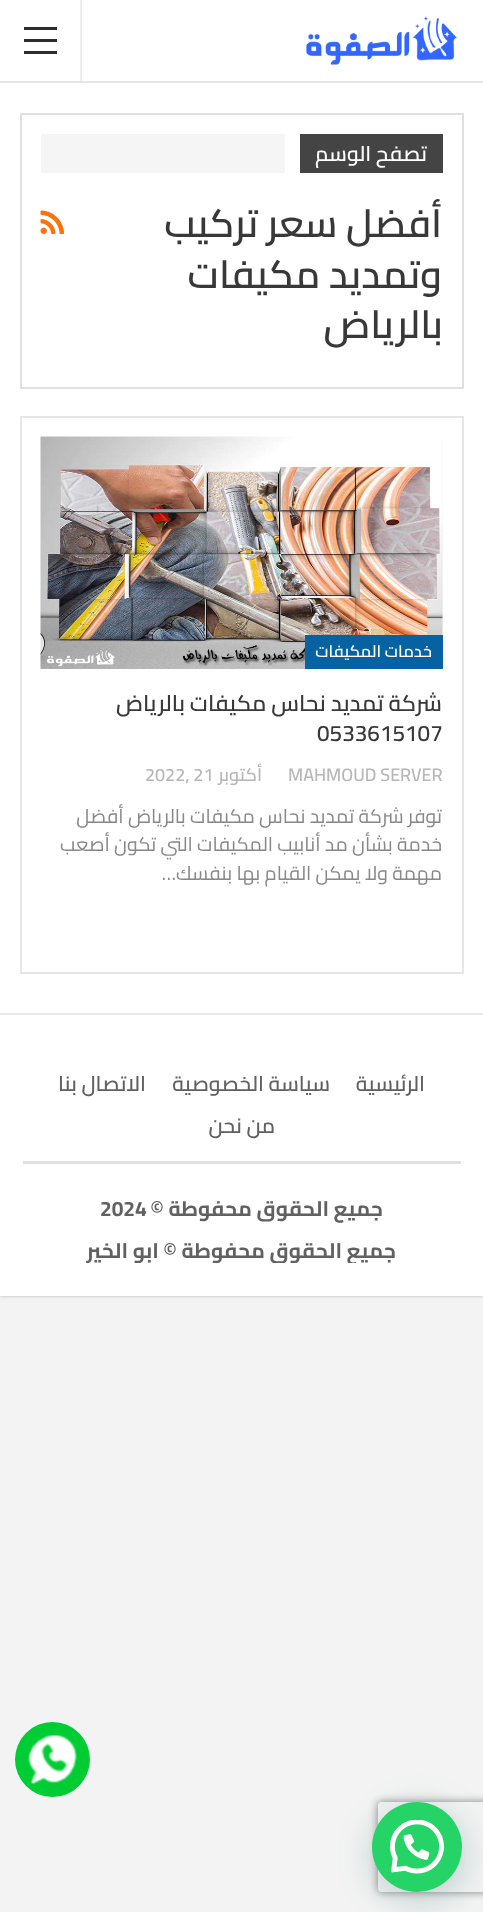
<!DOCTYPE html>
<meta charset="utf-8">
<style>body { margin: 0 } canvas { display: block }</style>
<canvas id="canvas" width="483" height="1912"></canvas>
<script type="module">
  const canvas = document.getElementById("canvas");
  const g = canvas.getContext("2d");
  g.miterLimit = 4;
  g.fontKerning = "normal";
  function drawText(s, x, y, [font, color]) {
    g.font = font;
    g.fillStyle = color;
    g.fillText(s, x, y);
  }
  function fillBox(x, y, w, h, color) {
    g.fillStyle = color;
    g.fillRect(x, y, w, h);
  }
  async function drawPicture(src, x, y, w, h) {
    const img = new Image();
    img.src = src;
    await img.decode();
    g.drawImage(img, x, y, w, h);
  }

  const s1 = ["600 21px Cairo", "#FFFFFF"];
  const s2 = ["600 39px Cairo", "#383838"];
  const s3 = ["600 16.5px Cairo", "#FFFFFF"];
  const s4 = ["600 22.5px Cairo", "#383838"];
  const s5 = ["600 18px Cairo", "#B7B7B7"];
  const s6 = ["19.5px Cairo", "#888888"];
  const s7 = ["600 21px Cairo", "#616161"];
  const s8 = ["bold 21px Cairo", "#616161"];

  fillBox(0, 0, 483, 1912, "#F3F3F3");
  g.fillStyle = "rgba(0, 0, 0, 0.27)";
  g.filter = "blur(1.5px)";
  g.beginPath();
  g.rect(0, 0, 483, 1296);
  g.fill();
  g.filter = "none";
  fillBox(0, 0, 483, 1296, "#FFFFFF");
  fillBox(0, 81, 483, 2, "#E5E5E5");
  await drawPicture("pic1.png", 306, 16, 151, 49);
  fillBox(80, 0, 2, 81, "#EDEDED");
  fillBox(24, 39, 33, 3, "#2C2C2C");
  fillBox(24, 27, 33, 3, "#2C2C2C");
  fillBox(24, 51, 33, 3, "#2C2C2C");
  g.strokeStyle = "#E0E0E0";
  g.lineWidth = 2;
  g.strokeRect(21, 114, 442, 274);
  fillBox(300, 134, 143, 39, "#444444");
  g.direction = "rtl";
  drawText("تصفح الوسم", 427, 161, s1);
  fillBox(41, 134, 244, 39, "#F5F5F5");
  drawText("أفضل سعر تركيب", 442, 237, s2);
  drawText("وتمديد مكيفات", 442, 288, s2);
  drawText("بالرياض", 443, 338, s2);
  await drawPicture("pic2.png", 40, 210, 25, 24);
  g.strokeStyle = "#E6E6E6";
  g.strokeRect(21, 417, 442, 556);
  fillBox(442, 437, 1, 198, "#F5F5F5");
  await drawPicture("pic3.png", 40, 436, 403, 233);
  fillBox(305, 635, 138, 34, "#0762A2");
  drawText("خدمات المكيفات", 432, 657, s3);
  drawText("شركة تمديد نحاس مكيفات بالرياض", 442, 711, s4);
  g.direction = "ltr";
  drawText("0533615107", 317, 741, s4);
  drawText("MAHMOUD SERVER", 288, 781, s5);
  g.direction = "rtl";
  drawText("أكتوبر", 262, 781, s5);
  g.direction = "ltr";
  drawText("2022, 21", 145, 781, s5);
  g.direction = "rtl";
  drawText("توفر شركة تمديد نحاس مكيفات بالرياض أفضل", 442, 823, s6);
  drawText("خدمة بشأن مد أنابيب المكيفات التي تكون أصعب", 442, 851, s6);
  drawText("مهمة ولا يمكن القيام بها بنفسك…", 442, 880, s6);
  fillBox(0, 1013, 483, 2, "#E8E8E8");
  fillBox(23, 1161, 438, 3, "#E0E0E0");
  drawText("الرئيسية", 425, 1091, s7);
  drawText("سياسة الخصوصية", 330, 1091, s7);
  drawText("الاتصال بنا", 146, 1091, s7);
  drawText("من نحن", 275, 1133, s7);
  drawText("جميع الحقوق محفوطة ©", 383, 1216, s8);
  g.direction = "ltr";
  drawText("2024", 100, 1216, s8);
  g.save();
  g.beginPath();
  g.rect(0, 1047, 483, 216);
  g.clip();
  g.direction = "rtl";
  drawText("جميع الحقوق محفوطة © ابو الخير", 396, 1258, s8);
  g.restore();
  g.fillStyle = "rgba(7, 94, 84, 0.24)";
  g.filter = "blur(18px)";
  g.beginPath();
  g.roundRect(374, 1811, 90, 90, 45);
  g.fill();
  g.filter = "none";
  g.save();
  g.beginPath();
  g.moveTo(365, 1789);
  g.lineTo(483, 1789);
  g.lineTo(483, 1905);
  g.lineTo(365, 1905);
  g.closePath();
  g.moveTo(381, 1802);
  g.lineTo(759, 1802);
  g.bezierCurveTo(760.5, 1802, 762, 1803.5, 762, 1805);
  g.lineTo(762, 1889);
  g.bezierCurveTo(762, 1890.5, 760.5, 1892, 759, 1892);
  g.lineTo(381, 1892);
  g.bezierCurveTo(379.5, 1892, 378, 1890.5, 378, 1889);
  g.lineTo(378, 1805);
  g.bezierCurveTo(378, 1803.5, 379.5, 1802, 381, 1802);
  g.closePath();
  g.clip("evenodd");
  g.fillStyle = "#808080";
  g.filter = "blur(4px)";
  g.beginPath();
  g.roundRect(378, 1802, 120, 90, 3);
  g.fill();
  g.filter = "none";
  g.restore();
  g.fillStyle = "#25D366";
  g.beginPath();
  g.arc(417, 1847, 45, 0, Math.PI * 2);
  g.fill();
  await drawPicture("pic4.png", 390, 1820, 54, 54);
  g.fillStyle = "#00CC33";
  g.beginPath();
  g.arc(52.5, 1759.5, 37.5, 0, Math.PI * 2);
  g.fill();
  await drawPicture("pic5.png", 28, 1735, 49, 49);
</script>
